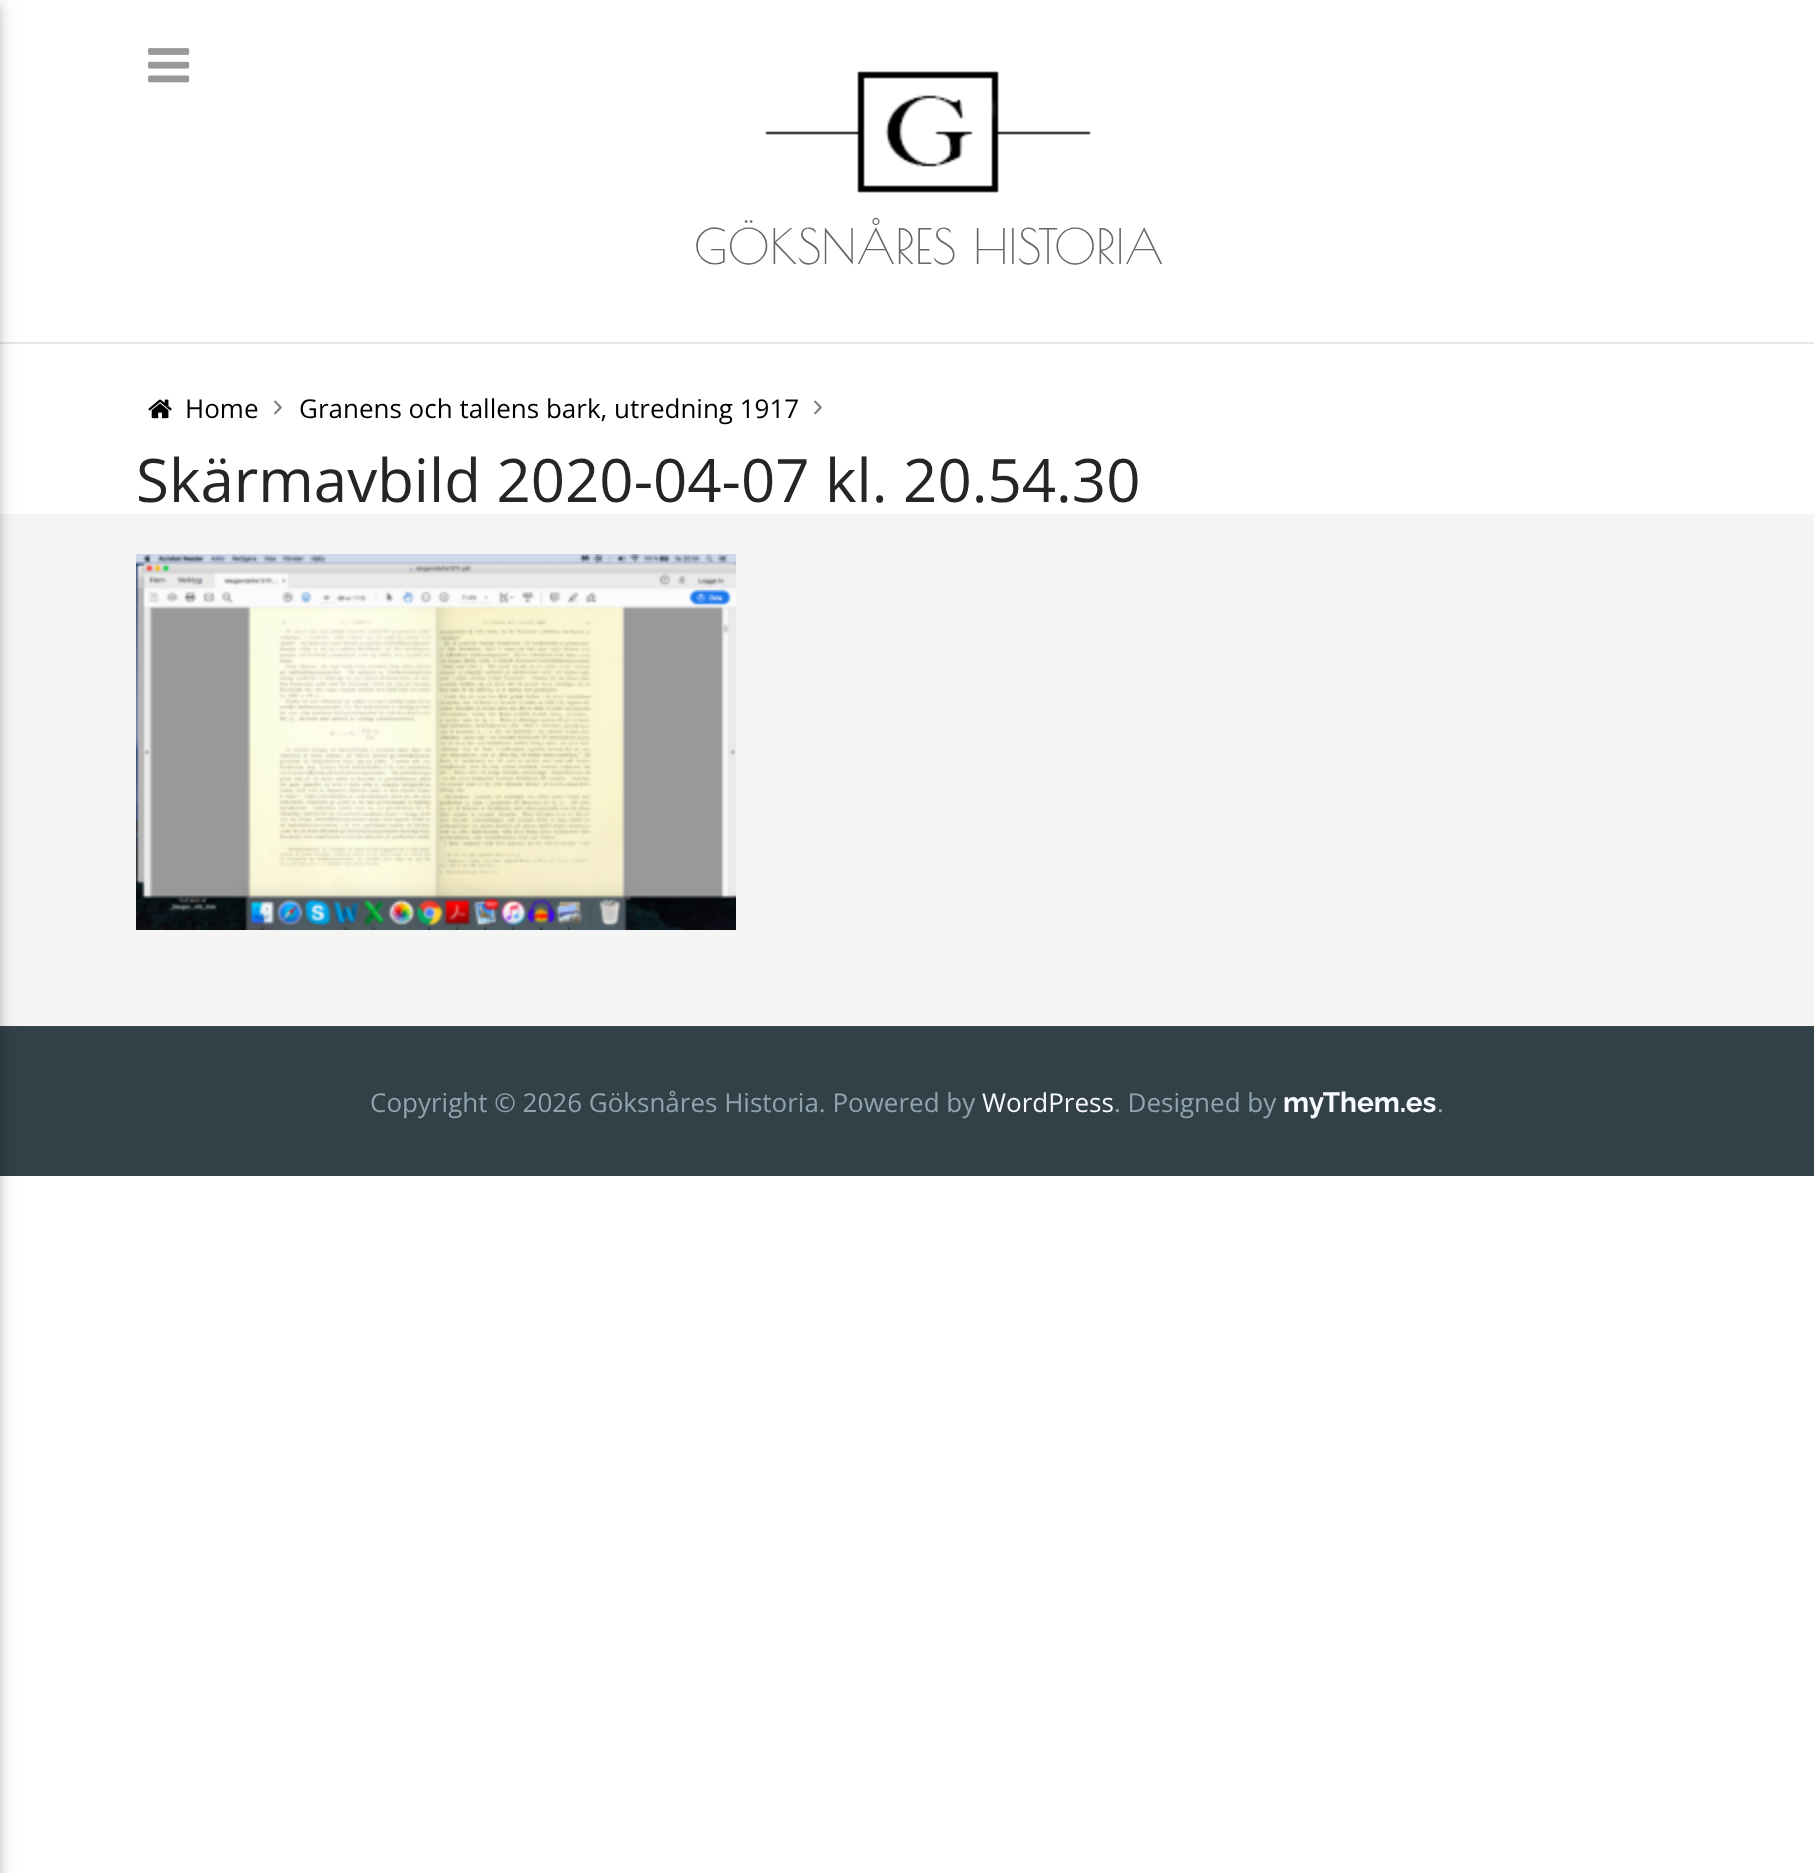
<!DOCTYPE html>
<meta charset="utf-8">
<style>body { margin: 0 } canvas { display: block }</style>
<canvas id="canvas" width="1814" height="1873"></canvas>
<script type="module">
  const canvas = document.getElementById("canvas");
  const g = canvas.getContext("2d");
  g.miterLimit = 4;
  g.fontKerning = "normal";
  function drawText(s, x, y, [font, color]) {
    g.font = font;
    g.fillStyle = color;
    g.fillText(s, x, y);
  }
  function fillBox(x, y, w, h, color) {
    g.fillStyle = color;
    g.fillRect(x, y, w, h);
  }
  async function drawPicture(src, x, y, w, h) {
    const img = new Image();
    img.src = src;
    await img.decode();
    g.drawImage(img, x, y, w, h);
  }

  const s1 = ["48px Poiret One", "#666666"];
  const s2 = ["26px Open Sans", "#000000"];
  const s3 = ["60px Open Sans", "#252525"];
  const s4 = ["26px Open Sans", "#90A4AE"];
  const s5 = ["26px Open Sans", "#F7FAFF"];
  const s6 = ["bold 28px Raleway", "#F7FAFF"];

  fillBox(0, 0, 1814, 1873, "#FFFFFF");
  fillBox(0, 342, 1814, 2, "#E6E6E6");
  fillBox(0, 514, 1814, 512, "#F5F5F5");
  fillBox(0, 1028, 1814, 148, "#324047");
  fillBox(0, 1026, 1814, 2, "#36444B");
  g.fillStyle = "rgba(0, 0, 0, 0.12)";
  g.filter = "blur(10px)";
  g.beginPath();
  g.rect(-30, 4, 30, 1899);
  g.fill();
  g.filter = "none";
  g.fillStyle = "rgba(0, 0, 0, 0.16)";
  g.filter = "blur(5px)";
  g.beginPath();
  g.rect(-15, 4, 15, 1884);
  g.fill();
  g.filter = "none";
  await drawPicture("pic1.png", 148, 48, 42, 35);
  await drawPicture("pic2.png", 765, 71, 326, 122);
  drawText("GÖKSNÅRES HISTORIA", 694, 264, s1);
  await drawPicture("pic3.png", 148, 399, 24, 20);
  drawText("Home", 185, 418, s2);
  await drawPicture("pic4.png", 274, 400, 8, 15);
  drawText("Granens och tallens bark, utredning 1917", 299, 418, s2);
  await drawPicture("pic4.png", 814, 400, 8, 15);
  drawText("Skärmavbild 2020-04-07 kl. 20.54.30", 136, 502, s3);
  await drawPicture("pic5.png", 136, 554, 600, 376);
  drawText("Copyright © 2026 Göksnåres Historia. Powered by", 370, 1112, s4);
  drawText("WordPress", 982, 1112, s5);
  drawText(". Designed by", 1114, 1112, s4);
  drawText("myThem.es", 1283, 1112, s6);
  drawText(".", 1437, 1112, s4);
</script>
